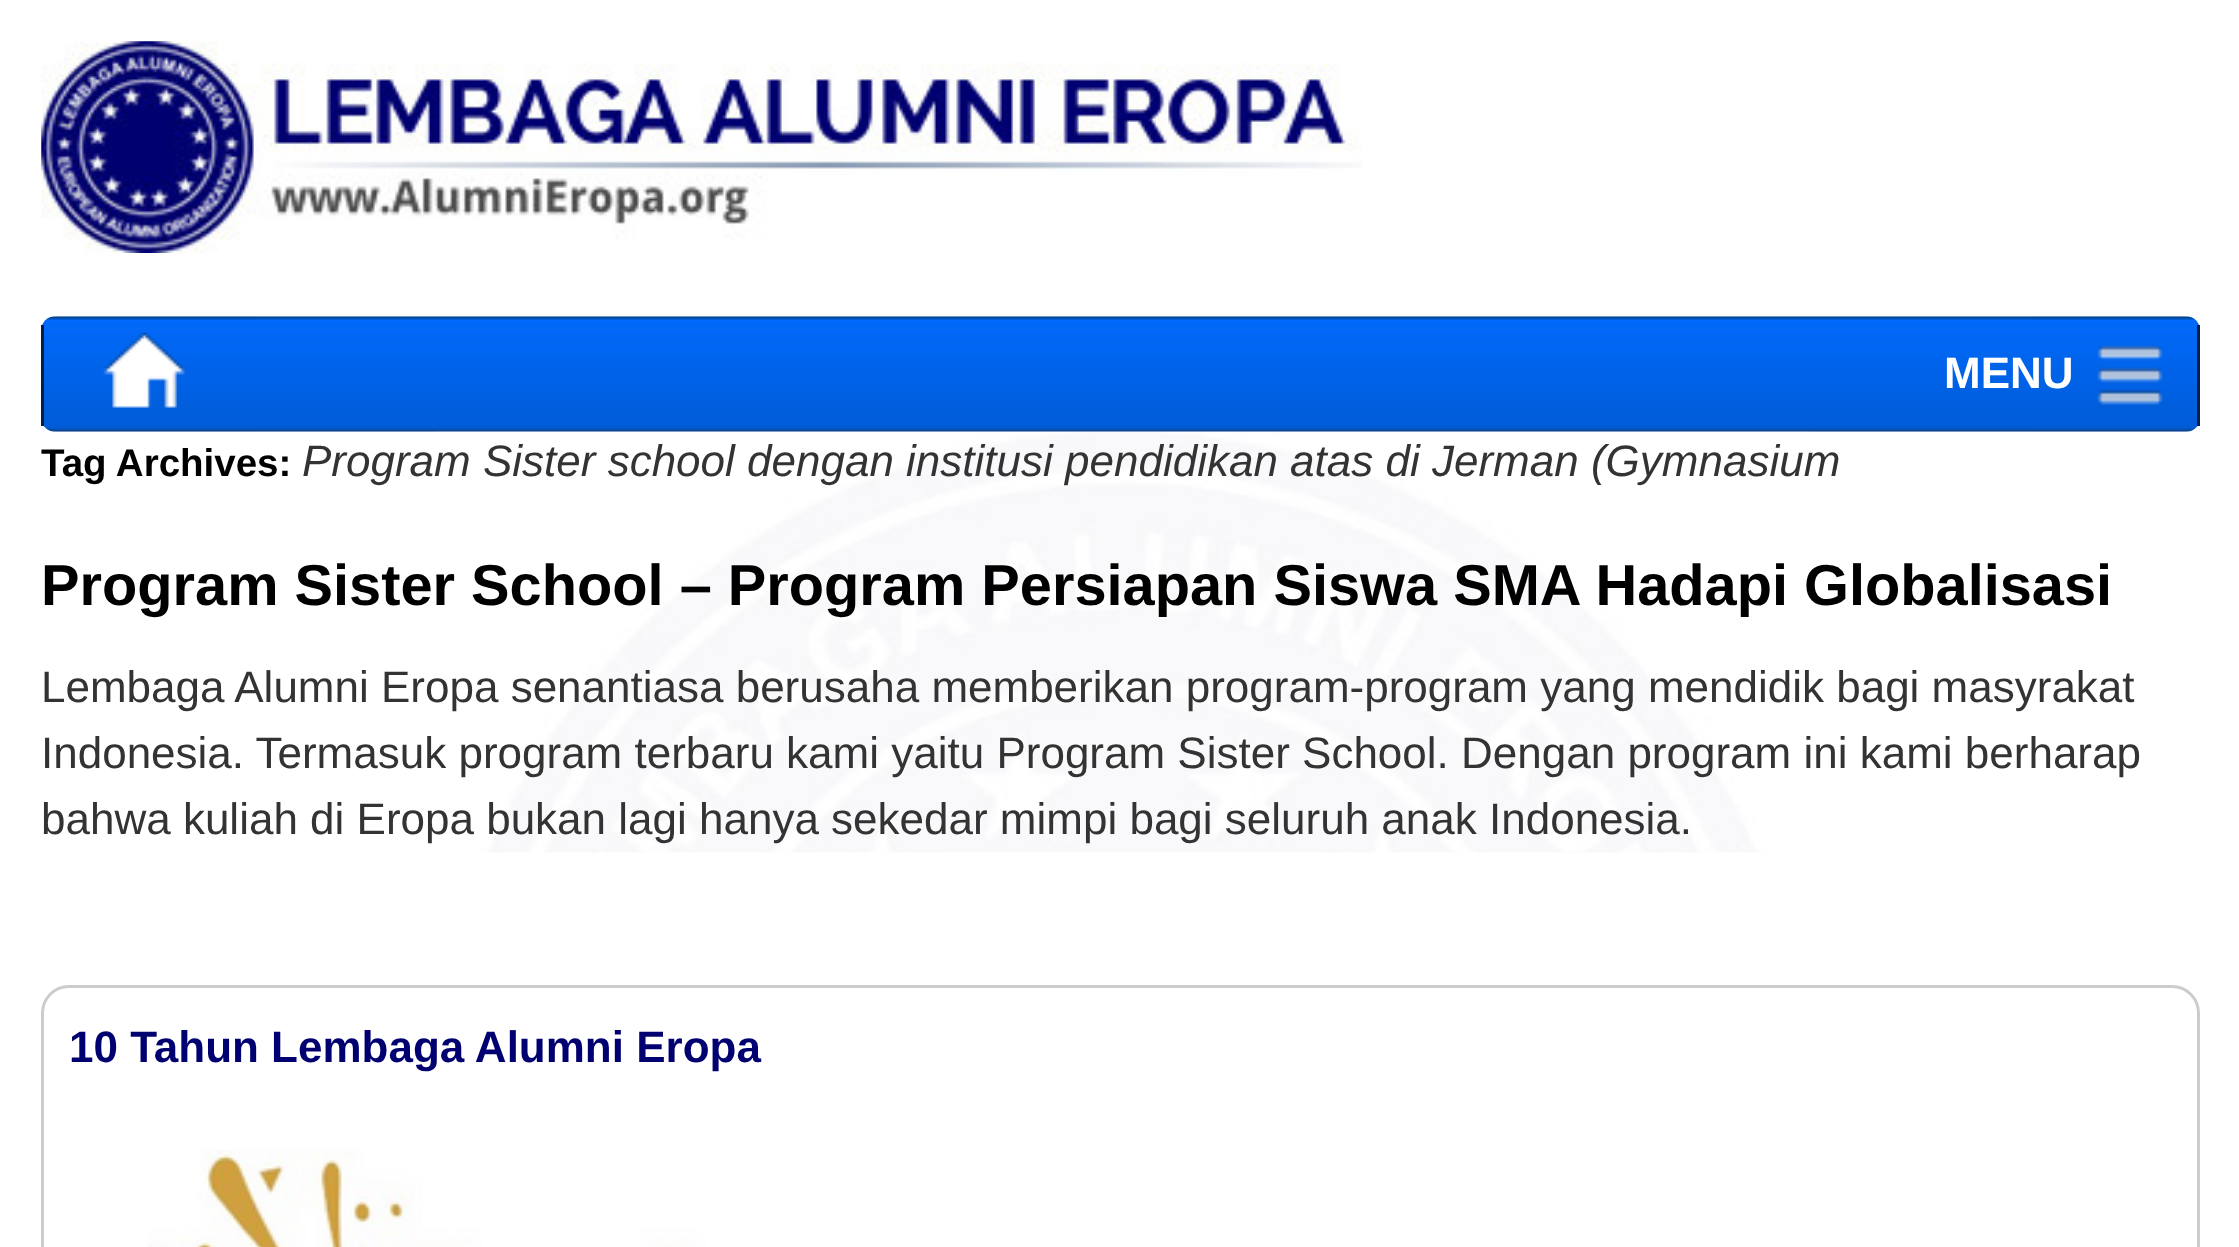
<!DOCTYPE html>
<meta charset="utf-8">
<style>body { margin: 0 } canvas { display: block }</style>
<canvas id="canvas" width="2239" height="1247"></canvas>
<script type="module">
  const canvas = document.getElementById("canvas");
  const g = canvas.getContext("2d");
  g.miterLimit = 4;
  g.fontKerning = "normal";
  function drawText(s, x, y, [font, color]) {
    g.font = font;
    g.fillStyle = color;
    g.fillText(s, x, y);
  }
  function fillBox(x, y, w, h, color) {
    g.fillStyle = color;
    g.fillRect(x, y, w, h);
  }
  async function drawPicture(src, x, y, w, h) {
    const img = new Image();
    img.src = src;
    await img.decode();
    g.drawImage(img, x, y, w, h);
  }

  const s1 = ["bold 44px Liberation Sans", "#FFFFFF"];
  const s2 = ["bold 38.5px Liberation Sans", "#000000"];
  const s3 = ["italic 44px Liberation Sans", "#333333"];
  const s4 = ["bold 57.75px Liberation Sans", "#000000"];
  const s5 = ["44px Liberation Sans", "#333333"];
  const s6 = ["bold 44px Liberation Sans", "#000070"];

  fillBox(0, 0, 2239, 1247, "#FFFFFF");
  await drawPicture("pic1.png", 41, 41, 1321, 212);
  await drawPicture("pic2.png", 42, 316, 2158, 116);
  fillBox(2197, 325, 3, 101, "#00204A");
  fillBox(41, 325, 3, 101, "#00204A");
  await drawPicture("pic3.png", 103, 332, 82, 76);
  await drawPicture("pic4.png", 2097, 345, 66, 60);
  drawText("MENU", 1944, 388, s1);
  await drawPicture("pic5.png", 434, 431, 1376, 422);
  drawText("Tag Archives:", 41, 476, s2);
  drawText("Program Sister school dengan institusi pendidikan atas di Jerman (Gymnasium", 302, 476, s3);
  drawText("Program Sister School – Program Persiapan Siswa SMA Hadapi Globalisasi", 41, 605, s4);
  drawText("Lembaga Alumni Eropa senantiasa berusaha memberikan program-program yang mendidik bagi masyrakat", 41, 702, s5);
  drawText("Indonesia. Termasuk program terbaru kami yaitu Program Sister School. Dengan program ini kami berharap", 41, 768, s5);
  drawText("bahwa kuliah di Eropa bukan lagi hanya sekedar mimpi bagi seluruh anak Indonesia.", 41, 834, s5);
  g.beginPath();
  g.roundRect(42.5, 986.5, 2156, 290, 26.5);
  g.strokeStyle = "#CCCCCC";
  g.lineWidth = 3;
  g.stroke();
  drawText("10 Tahun Lembaga Alumni Eropa", 69, 1062, s6);
  await drawPicture("pic6.png", 148, 1149, 558, 98);
</script>
